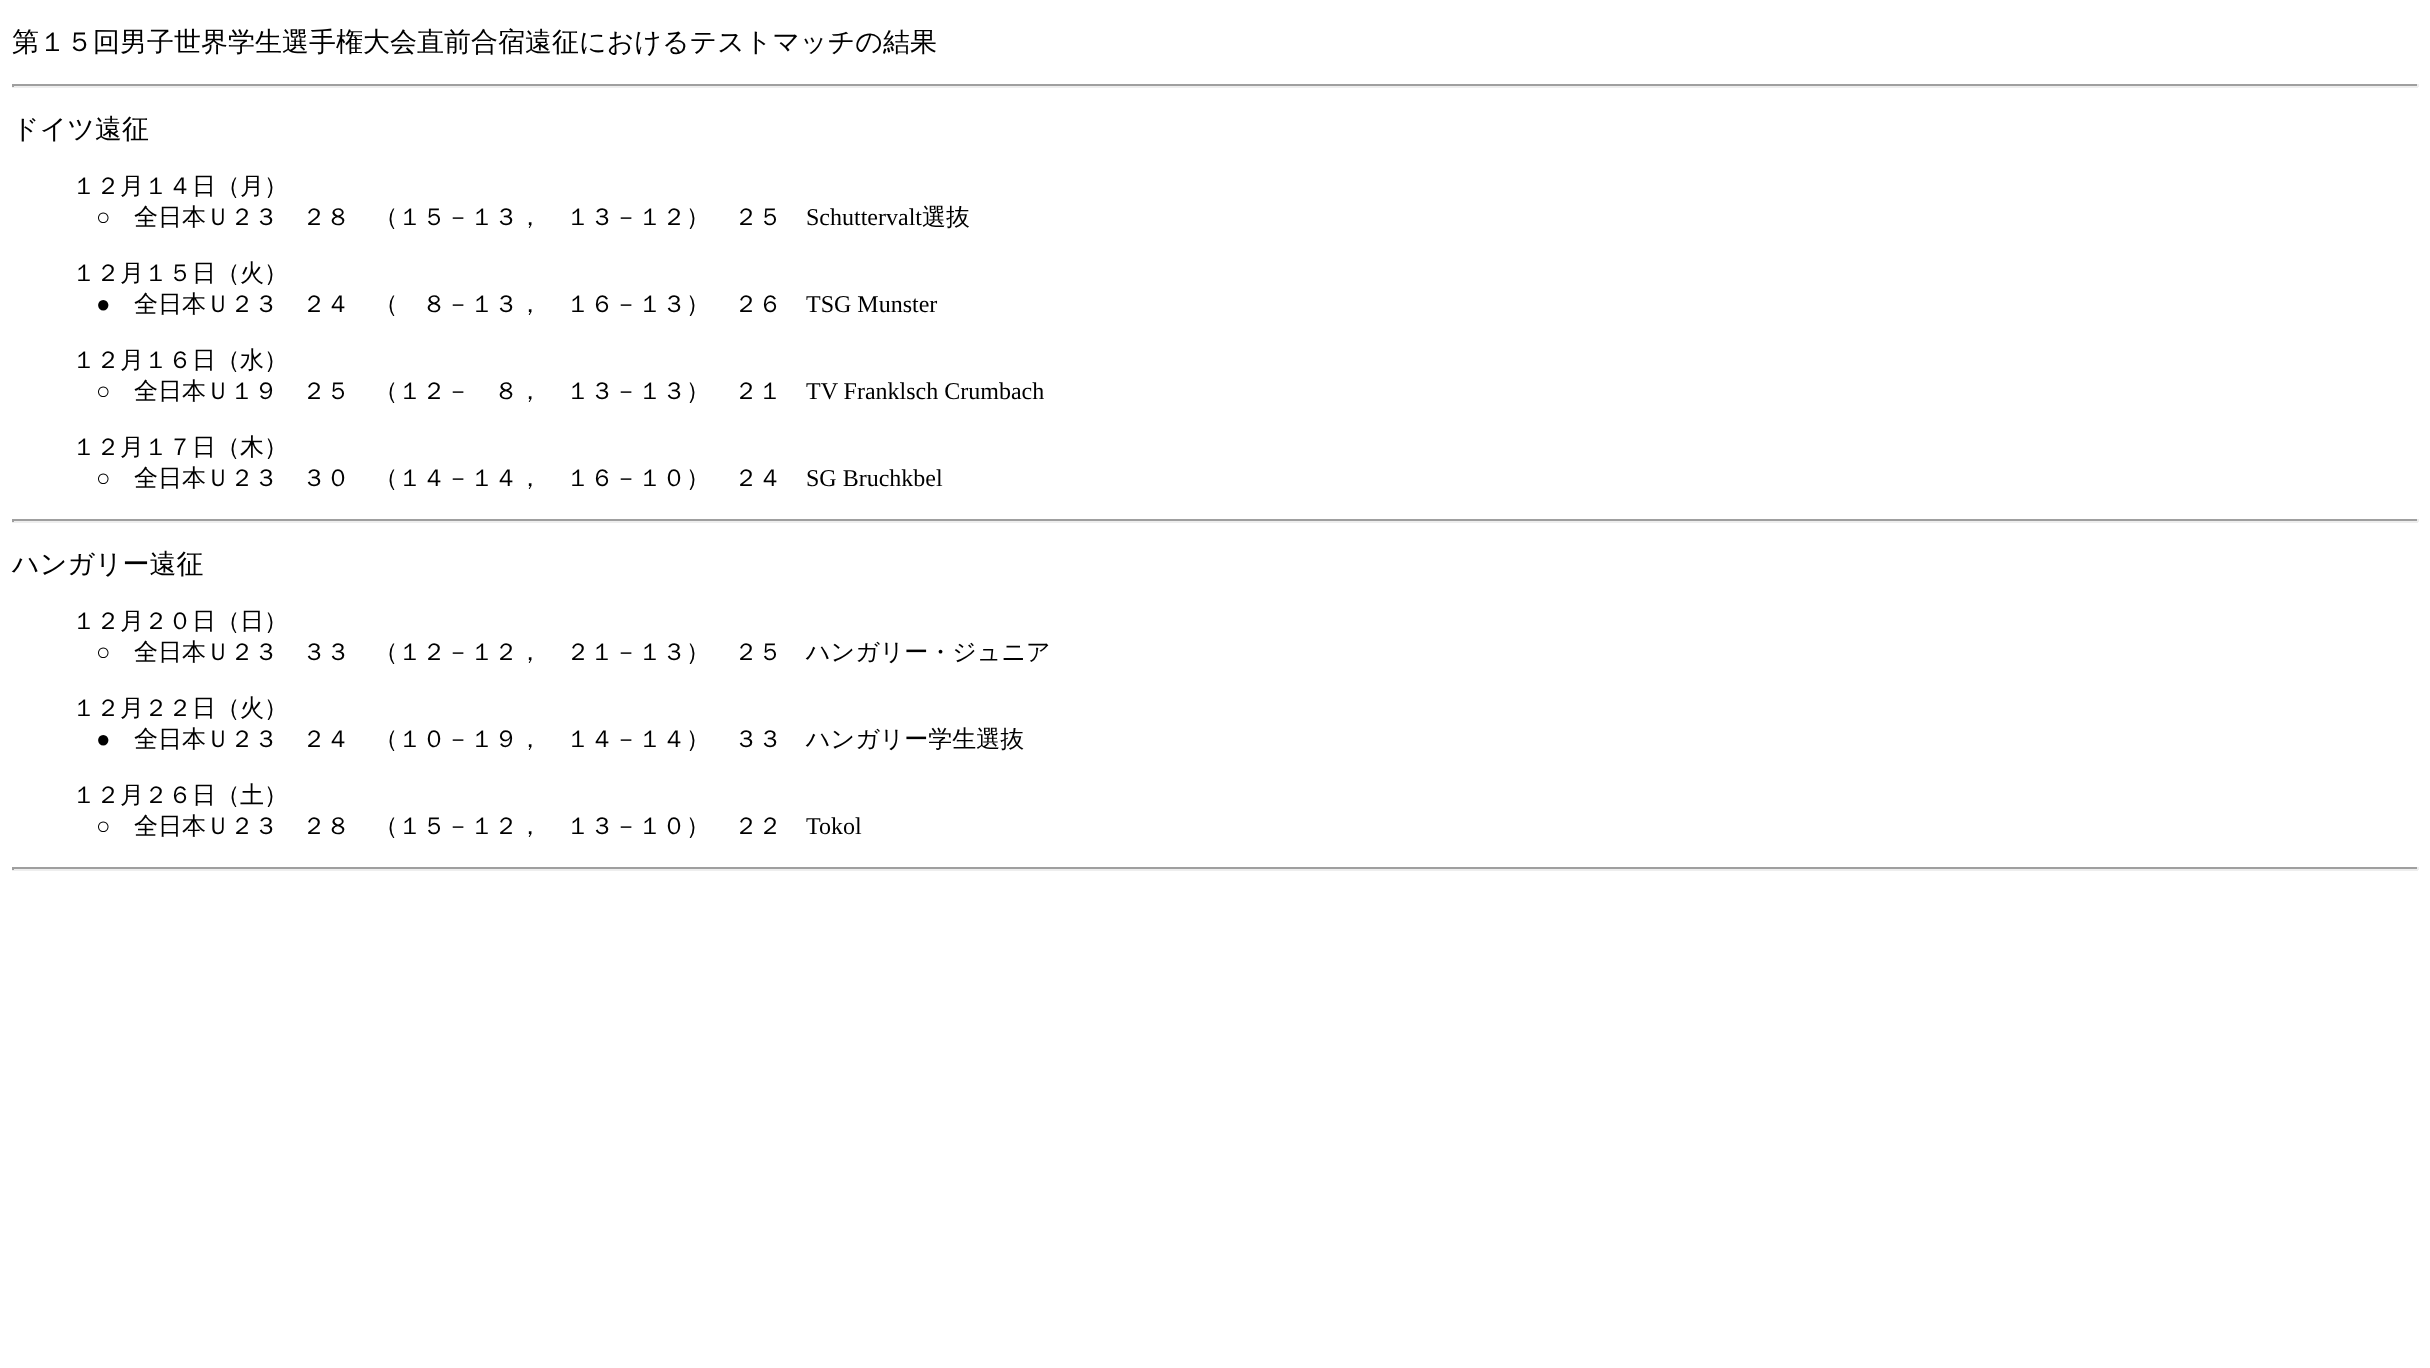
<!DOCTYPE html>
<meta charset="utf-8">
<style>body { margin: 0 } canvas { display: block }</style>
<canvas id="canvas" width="2430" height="1368"></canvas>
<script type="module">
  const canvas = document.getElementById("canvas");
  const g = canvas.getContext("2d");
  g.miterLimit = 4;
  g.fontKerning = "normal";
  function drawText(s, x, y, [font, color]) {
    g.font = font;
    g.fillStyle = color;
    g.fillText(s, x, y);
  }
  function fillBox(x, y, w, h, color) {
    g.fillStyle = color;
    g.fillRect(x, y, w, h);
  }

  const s1 = ["500 27px WenQuanYi Zen Hei", "#000000"];
  const s2 = ["500 24px WenQuanYi Zen Hei", "#000000"];
  const s3 = ["24px Liberation Serif", "#000000"];

  fillBox(0, 0, 2430, 1368, "#FFFFFF");
  drawText("第１５回男子世界学生選手権大会直前合宿遠征におけるテストマッチの結果", 12, 51, s1);
  fillBox(12, 84, 2406, 2, "#9F9F9F");
  fillBox(2417, 84, 2, 3, "#EEEEEE");
  fillBox(12, 86, 2406, 2, "#EEEEEE");
  fillBox(12, 84, 2, 3, "#9F9F9F");
  drawText("ドイツ遠征", 12, 138, s1);
  drawText("１２月１４日（月）", 72, 194, s2);
  drawText("○", 96, 225, s3);
  drawText("全日本Ｕ２３　２８　（１５－１３，　１３－１２）　２５", 134, 225, s2);
  drawText("Schuttervalt", 806, 225, s3);
  drawText("選抜", 922, 225, s2);
  drawText("１２月１５日（火）", 72, 281, s2);
  drawText("●", 96, 312, s3);
  drawText("全日本Ｕ２３　２４　（　８－１３，　１６－１３）　２６", 134, 312, s2);
  drawText("TSG Munster", 806, 312, s3);
  drawText("１２月１６日（水）", 72, 368, s2);
  drawText("○", 96, 399, s3);
  drawText("全日本Ｕ１９　２５　（１２－　８，　１３－１３）　２１", 134, 399, s2);
  drawText("TV Franklsch Crumbach", 806, 399, s3);
  drawText("１２月１７日（木）", 72, 455, s2);
  drawText("○", 96, 486, s3);
  drawText("全日本Ｕ２３　３０　（１４－１４，　１６－１０）　２４", 134, 486, s2);
  drawText("SG Bruchkbel", 806, 486, s3);
  fillBox(12, 519, 2406, 2, "#9F9F9F");
  fillBox(2417, 519, 2, 3, "#EEEEEE");
  fillBox(12, 521, 2406, 2, "#EEEEEE");
  fillBox(12, 519, 2, 3, "#9F9F9F");
  drawText("ハンガリー遠征", 12, 573, s1);
  drawText("１２月２０日（日）", 72, 629, s2);
  drawText("○", 96, 660, s3);
  drawText("全日本Ｕ２３　３３　（１２－１２，　２１－１３）　２５　ハンガリー・ジュニア", 134, 660, s2);
  drawText("１２月２２日（火）", 72, 716, s2);
  drawText("●", 96, 747, s3);
  drawText("全日本Ｕ２３　２４　（１０－１９，　１４－１４）　３３　ハンガリー学生選抜", 134, 747, s2);
  drawText("１２月２６日（土）", 72, 803, s2);
  drawText("○", 96, 834, s3);
  drawText("全日本Ｕ２３　２８　（１５－１２，　１３－１０）　２２", 134, 834, s2);
  drawText("Tokol", 806, 834, s3);
  fillBox(12, 867, 2406, 2, "#9F9F9F");
  fillBox(2417, 867, 2, 3, "#EEEEEE");
  fillBox(12, 869, 2406, 2, "#EEEEEE");
  fillBox(12, 867, 2, 3, "#9F9F9F");
</script>
